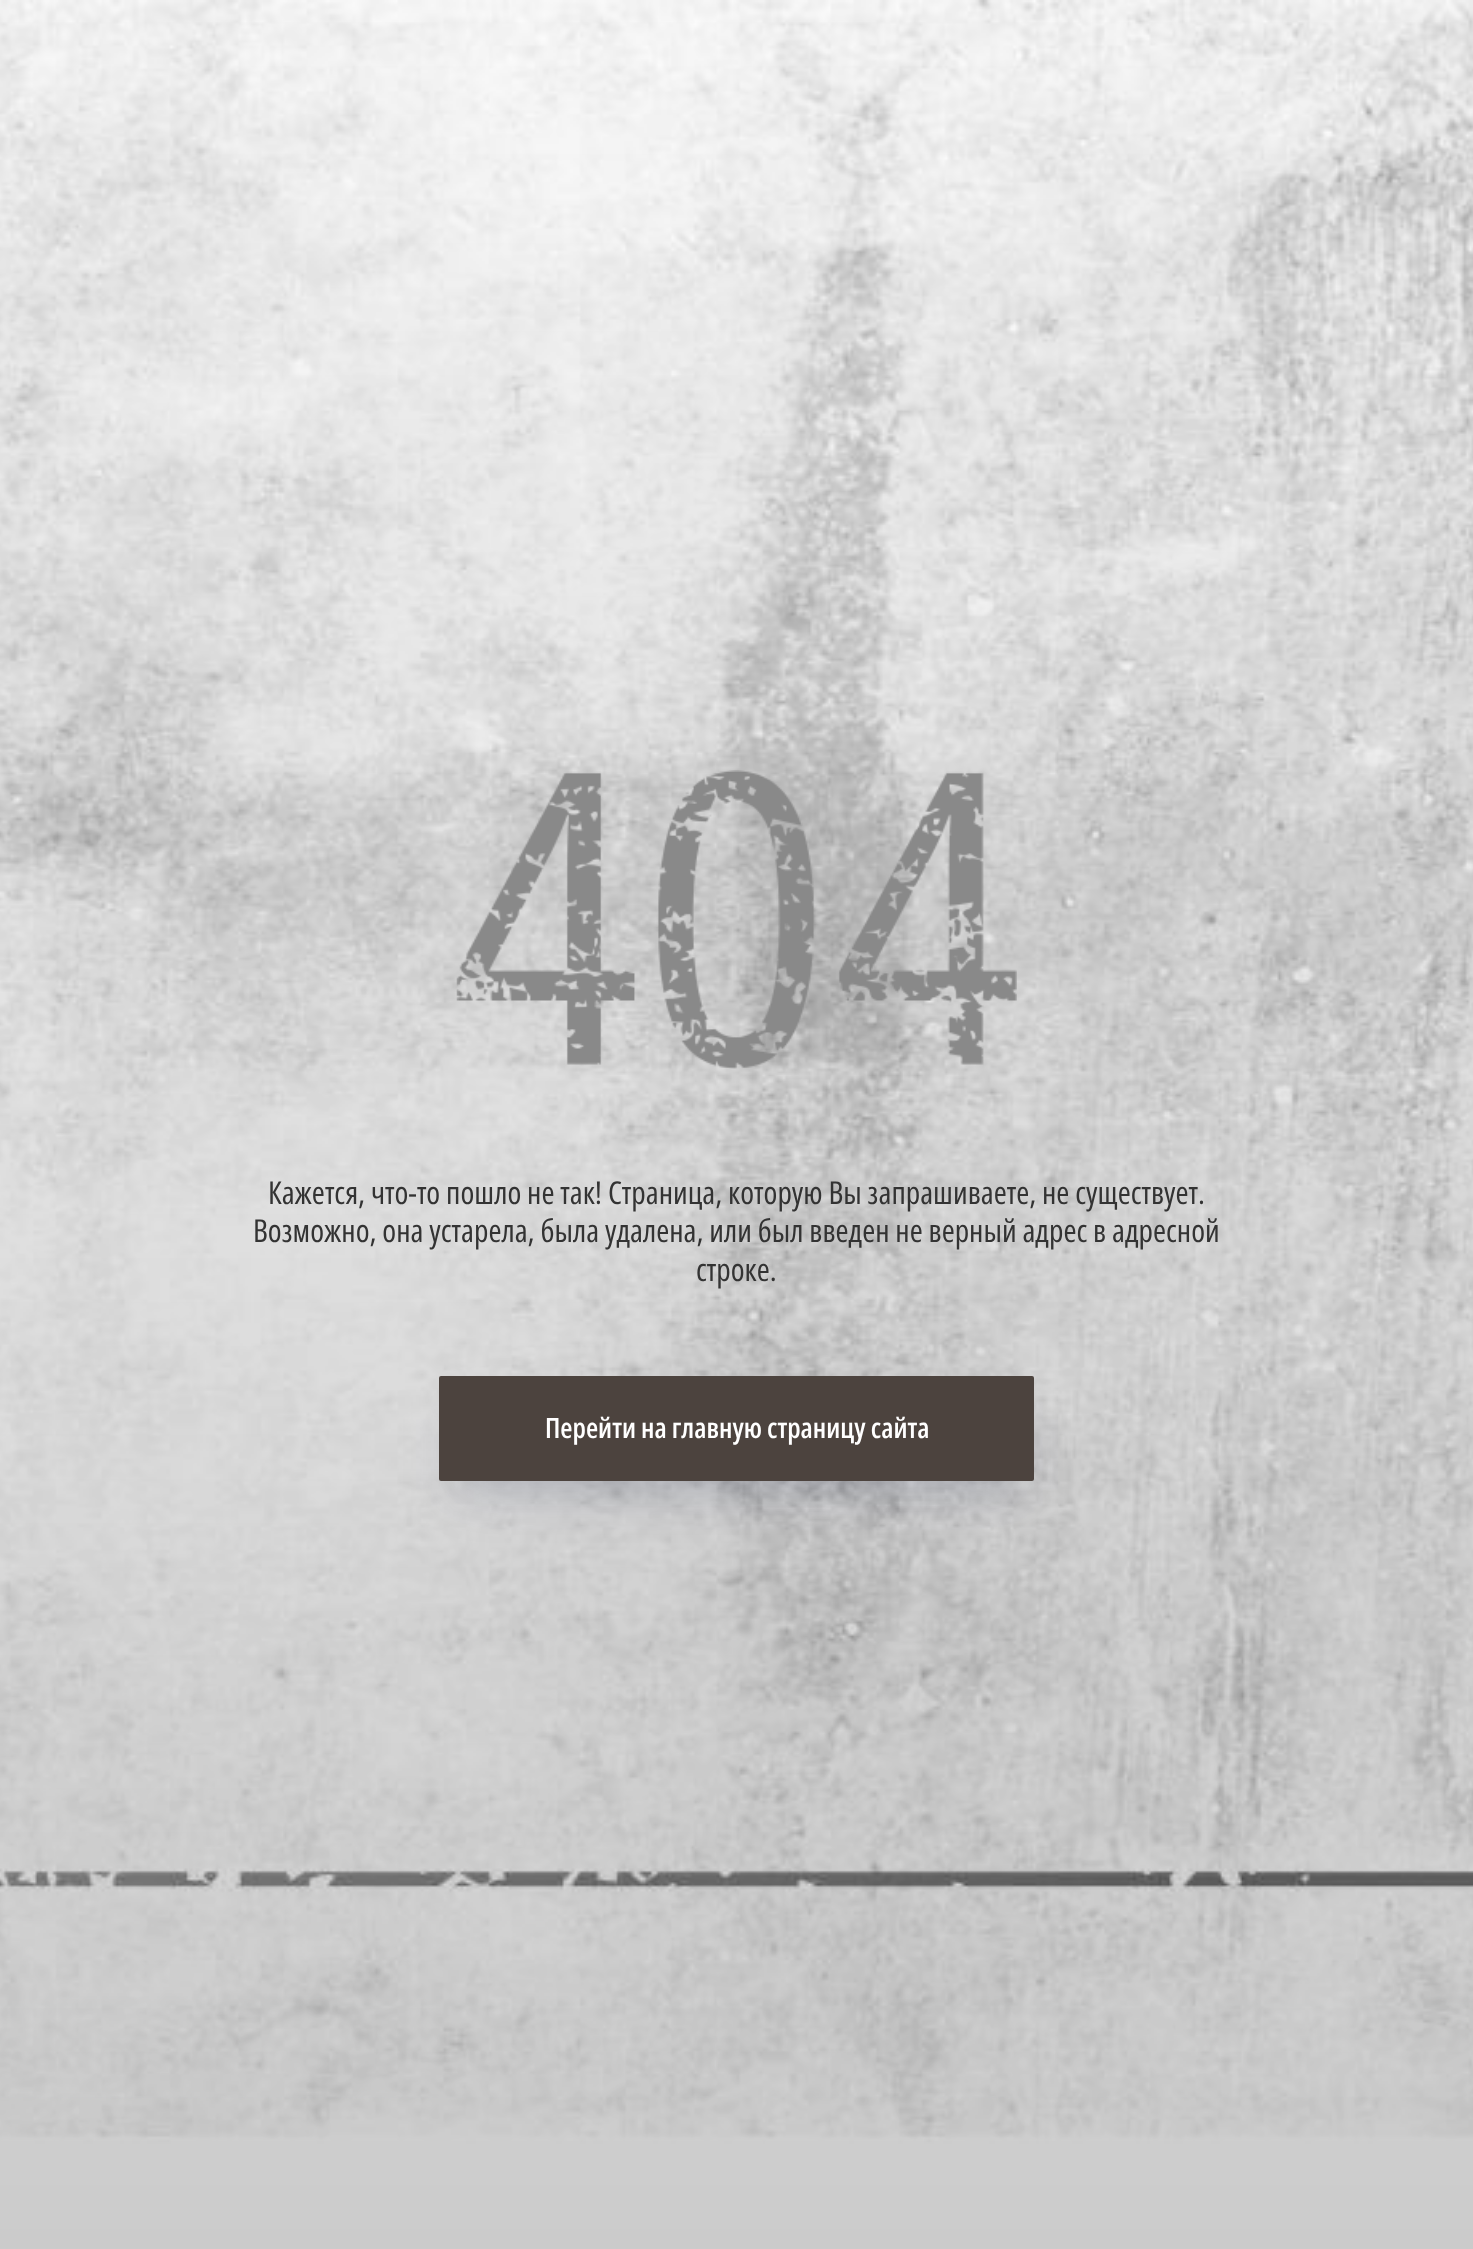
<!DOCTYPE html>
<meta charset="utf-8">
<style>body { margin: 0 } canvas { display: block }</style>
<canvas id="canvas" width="1473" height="2249"></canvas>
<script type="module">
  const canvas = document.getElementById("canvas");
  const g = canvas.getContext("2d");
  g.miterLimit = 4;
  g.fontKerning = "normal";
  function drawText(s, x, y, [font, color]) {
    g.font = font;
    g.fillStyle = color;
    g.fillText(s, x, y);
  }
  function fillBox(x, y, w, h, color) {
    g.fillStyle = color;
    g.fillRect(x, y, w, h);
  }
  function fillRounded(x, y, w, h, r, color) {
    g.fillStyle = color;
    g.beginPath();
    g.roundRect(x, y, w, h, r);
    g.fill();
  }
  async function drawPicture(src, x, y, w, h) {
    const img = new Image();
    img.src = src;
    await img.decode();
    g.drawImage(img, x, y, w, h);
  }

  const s1 = ["31.5px Open Sans Condensed", "#333333"];
  const s2 = ["600 28px Open Sans Condensed", "#FFFFFF"];

  fillBox(0, 0, 1473, 2249, "#FFFFFF");
  await drawPicture("pic1.png", 0, 0, 1473, 2249);
  await drawPicture("pic2.png", 456, 770, 561, 299);
  drawText("Кажется, что-то пошло не так! Страница, которую Вы запрашиваете, не существует.", 268, 1204, s1);
  drawText("Возможно, она устарела, была удалена, или был введен не верный адрес в адресной", 253, 1242, s1);
  drawText("строке.", 696, 1281, s1);
  g.fillStyle = "rgba(0, 11, 48, 0.2)";
  g.filter = "blur(26px)";
  g.beginPath();
  g.rect(457, 1419, 560, 70);
  g.fill();
  g.filter = "none";
  fillRounded(439, 1376, 595, 105, 2, "#4C433E");
  drawText("Перейти на главную страницу сайта", 545, 1438, s2);
</script>
